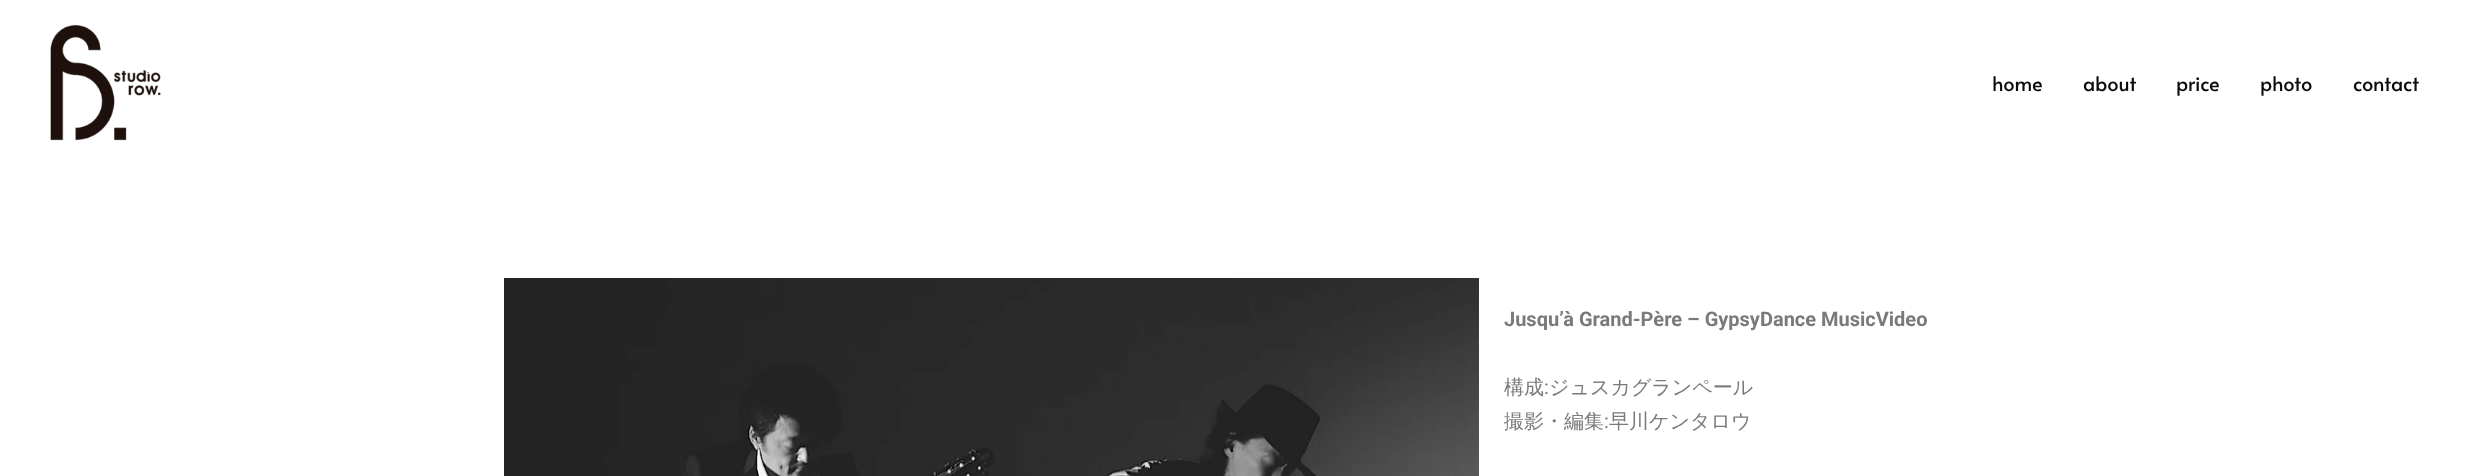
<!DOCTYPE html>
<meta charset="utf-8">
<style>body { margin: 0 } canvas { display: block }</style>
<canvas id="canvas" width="2482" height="476"></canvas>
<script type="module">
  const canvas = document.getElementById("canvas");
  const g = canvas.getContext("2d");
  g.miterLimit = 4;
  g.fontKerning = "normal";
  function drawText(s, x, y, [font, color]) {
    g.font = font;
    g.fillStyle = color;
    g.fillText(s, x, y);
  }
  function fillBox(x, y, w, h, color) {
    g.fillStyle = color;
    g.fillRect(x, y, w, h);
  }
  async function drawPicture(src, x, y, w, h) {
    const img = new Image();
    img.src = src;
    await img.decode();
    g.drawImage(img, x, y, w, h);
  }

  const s1 = ["20px Alata", "#0C0C0C"];
  const s2 = ["bold 20px Roboto", "#7A7A7A"];
  const s3 = ["500 20px WenQuanYi Zen Hei", "#7A7A7A"];
  const s4 = ["20px Roboto", "#7A7A7A"];

  fillBox(0, 0, 2482, 476, "#FFFFFF");
  await drawPicture("pic1.png", 50, 24, 111, 117);
  drawText("home", 1992, 91, s1);
  drawText("about", 2083, 91, s1);
  drawText("price", 2176, 91, s1);
  drawText("photo", 2260, 91, s1);
  drawText("contact", 2353, 91, s1);
  await drawPicture("pic2.png", 504, 278, 975, 198);
  drawText("Jusqu’à Grand-Père – GypsyDance MusicVideo", 1504, 326, s2);
  drawText("構成", 1504, 394, s3);
  drawText(":", 1544, 394, s4);
  drawText("ジュスカグランペール", 1549, 394, s3);
  drawText("撮影・編集", 1504, 428, s3);
  drawText(":", 1604, 428, s4);
  drawText("早川ケンタロウ", 1609, 428, s3);
</script>
